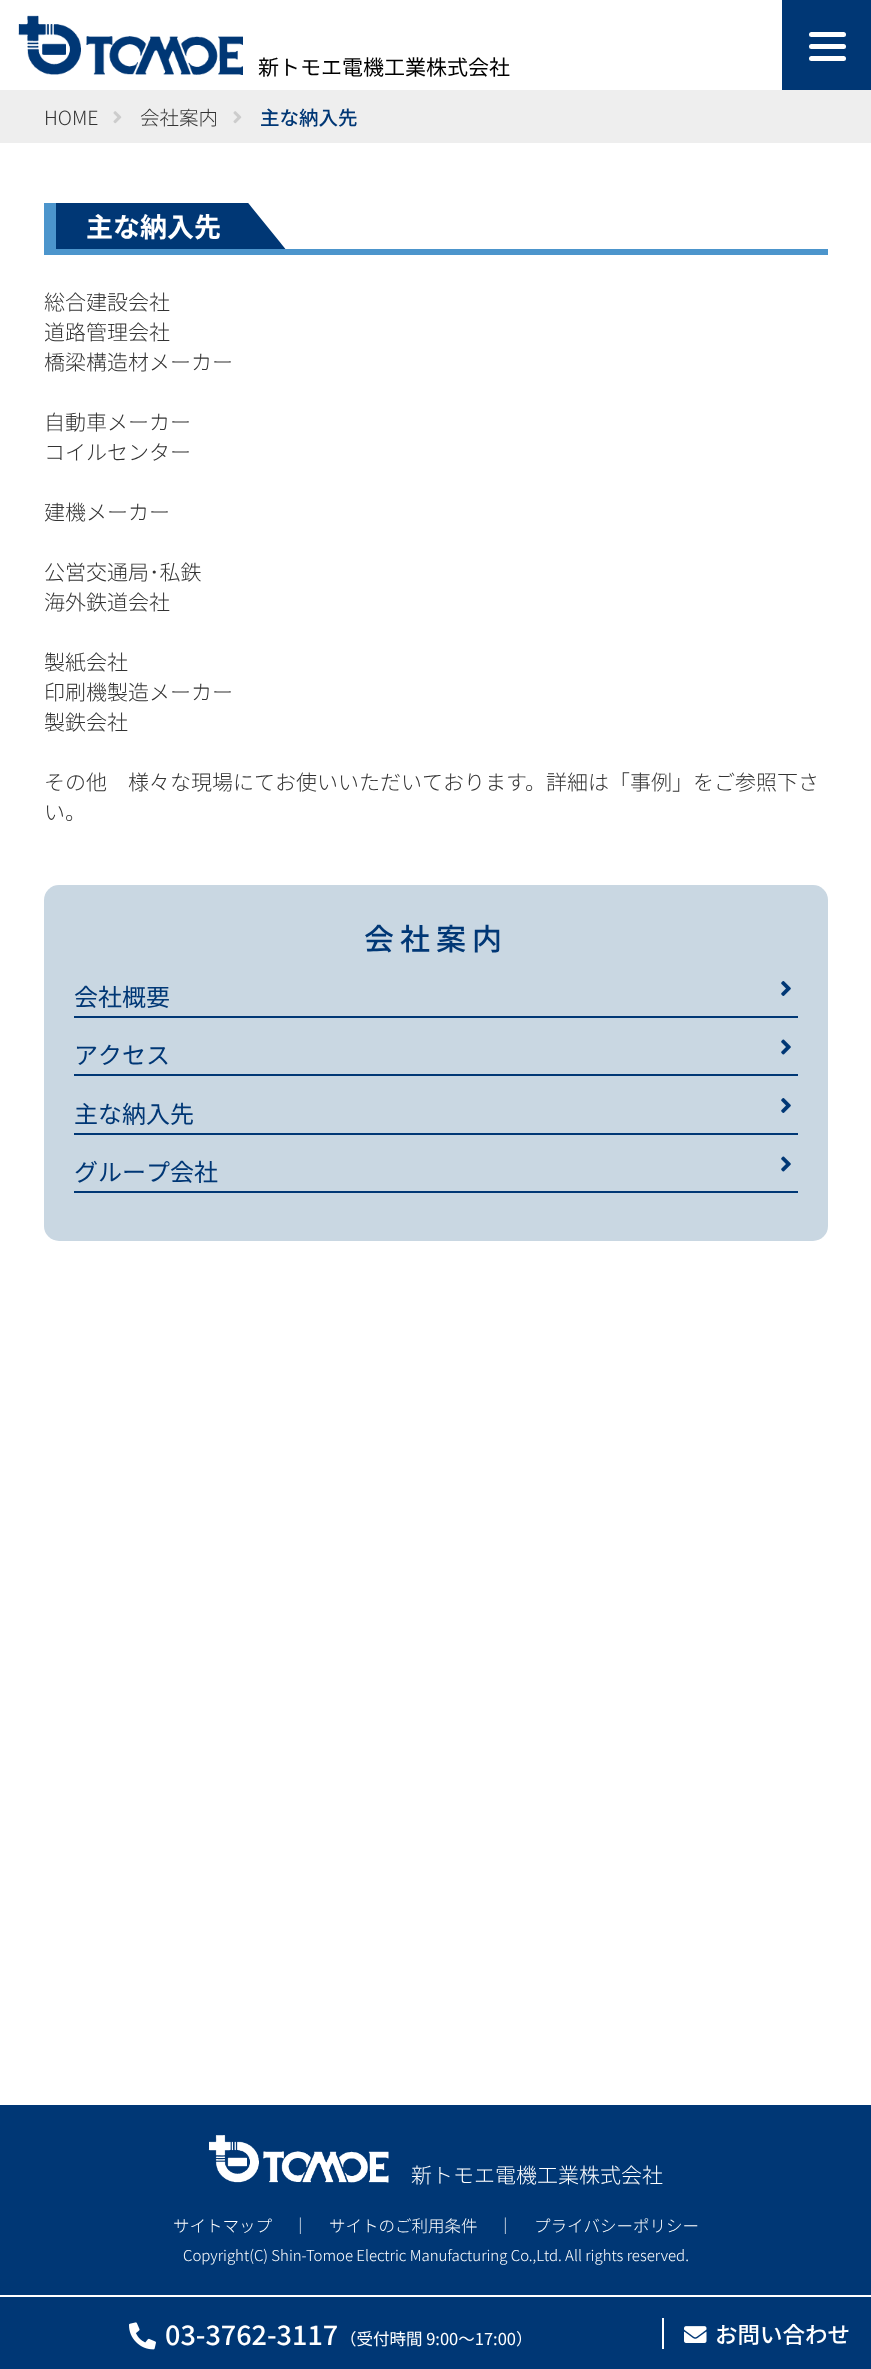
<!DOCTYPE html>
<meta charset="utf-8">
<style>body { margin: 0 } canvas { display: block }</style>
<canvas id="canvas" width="871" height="2369"></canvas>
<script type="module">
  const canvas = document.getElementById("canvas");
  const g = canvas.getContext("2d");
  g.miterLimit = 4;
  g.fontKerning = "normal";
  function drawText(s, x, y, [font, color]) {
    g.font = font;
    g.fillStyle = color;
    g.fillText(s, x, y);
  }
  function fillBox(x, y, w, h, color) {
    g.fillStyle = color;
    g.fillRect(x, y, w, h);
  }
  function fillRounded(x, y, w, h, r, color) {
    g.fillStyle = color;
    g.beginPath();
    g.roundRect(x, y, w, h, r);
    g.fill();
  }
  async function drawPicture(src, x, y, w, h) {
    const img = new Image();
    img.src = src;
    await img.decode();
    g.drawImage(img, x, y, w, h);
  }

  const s1 = ["21px Noto Sans JP", "#000000"];
  const s2 = ["300 19.5px Noto Sans JP", "#333333"];
  const s3 = ["500 19.5px Noto Sans JP", "#003775"];
  const s4 = ["bold 27px Noto Sans JP", "#FFFFFF"];
  const s5 = ["300 21px Noto Sans JP", "#333333"];
  const s6 = ["500 30px Noto Sans JP", "#003775"];
  const s7 = ["24px Noto Sans JP", "#003775"];
  const s8 = ["300 21px Noto Sans JP", "#FFFFFF"];
  const s9 = ["300 16.5px Noto Sans JP", "#FFFFFF"];
  const s10 = ["300 15px Noto Sans JP", "#FFFFFF"];
  const s11 = ["500 27px Noto Sans JP", "#FFFFFF"];
  const s12 = ["16.5px Noto Sans JP", "#FFFFFF"];
  const s13 = ["500 22.5px Noto Sans JP", "#FFFFFF"];

  fillBox(0, 0, 871, 2369, "#FFFFFF");
  await drawPicture("pic1.png", 18, 15, 225, 60);
  drawText("新トモエ電機工業株式会社", 258, 75, s1);
  fillBox(782, 0, 89, 90, "#003775");
  fillRounded(809, 44, 37, 5, 2.5, "#FFFFFF");
  fillRounded(809, 32, 37, 5, 2.5, "#FFFFFF");
  fillRounded(809, 56, 37, 5, 2.5, "#FFFFFF");
  fillBox(0, 90, 871, 53, "#EEEEEE");
  drawText("HOME", 44, 125, s2);
  await drawPicture("pic2.png", 113, 111, 9, 13);
  drawText("会社案内", 140, 125, s2);
  await drawPicture("pic2.png", 233, 111, 9, 13);
  drawText("主な納入先", 260, 125, s3);
  fillBox(56, 203, 230, 46, "#003775");
  g.fillStyle = "#FFFFFF";
  g.beginPath();
  g.moveTo(296, 188);
  g.lineTo(296, 262);
  g.lineTo(236, 188);
  g.closePath();
  g.fill();
  fillBox(44, 249, 784, 6, "#4C95CC");
  fillBox(44, 203, 12, 46, "#4C95CC");
  drawText("主な納入先", 86, 237, s4);
  drawText("総合建設会社", 44, 310, s5);
  drawText("道路管理会社", 44, 340, s5);
  drawText("橋梁構造材メーカー", 44, 370, s5);
  drawText("自動車メーカー", 44, 430, s5);
  drawText("コイルセンター", 44, 460, s5);
  drawText("建機メーカー", 44, 520, s5);
  drawText("公営交通局･私鉄", 44, 580, s5);
  drawText("海外鉄道会社", 44, 610, s5);
  drawText("製紙会社", 44, 670, s5);
  drawText("印刷機製造メーカー", 44, 700, s5);
  drawText("製鉄会社", 44, 730, s5);
  drawText("その他　様々な現場にてお使いいただいております。詳細は「事例」をご参照下さ", 44, 790, s5);
  drawText("い。", 44, 820, s5);
  fillRounded(44, 885, 784, 356, 15, "#C9D7E2");
  g.letterSpacing = "6px";
  drawText("会社案内", 364, 950, s6);
  fillBox(74, 1016, 724, 2, "#003775");
  g.letterSpacing = "0px";
  drawText("会社概要", 74, 1006, s7);
  await drawPicture("pic3.png", 781, 981, 10, 15);
  fillBox(74, 1074, 724, 2, "#003775");
  drawText("アクセス", 74, 1064, s7);
  await drawPicture("pic4.png", 781, 1039, 10, 16);
  fillBox(74, 1133, 724, 2, "#003775");
  drawText("主な納入先", 74, 1123, s7);
  await drawPicture("pic3.png", 781, 1098, 10, 15);
  fillBox(74, 1191, 724, 2, "#003775");
  drawText("グループ会社", 74, 1181, s7);
  await drawPicture("pic4.png", 781, 1156, 10, 16);
  fillBox(0, 2105, 871, 190, "#003775");
  await drawPicture("pic5.png", 208, 2135, 181, 48);
  drawText("新トモエ電機工業株式会社", 411, 2183, s8);
  drawText("サイトマップ", 173, 2232, s9);
  drawText("｜", 292, 2232, s9);
  drawText("サイトのご利用条件", 329, 2232, s9);
  drawText("｜", 497, 2232, s9);
  drawText("プライバシーポリシー", 534, 2232, s9);
  drawText("Copyright(C) Shin-Tomoe Electric Manufacturing Co.,Ltd. All rights reserved.", 183, 2261, s10);
  fillBox(0, 2297, 871, 72, "#003775");
  await drawPicture("pic6.png", 129, 2322, 27, 28);
  drawText("03-3762-3117", 165, 2345, s11);
  drawText("（受付時間 9:00～17:00）", 340, 2345, s12);
  fillBox(662, 2318, 2, 31, "#FFFFFF");
  await drawPicture("pic7.png", 684, 2326, 23, 17);
  drawText("お問い合わせ", 715, 2343, s13);
</script>
